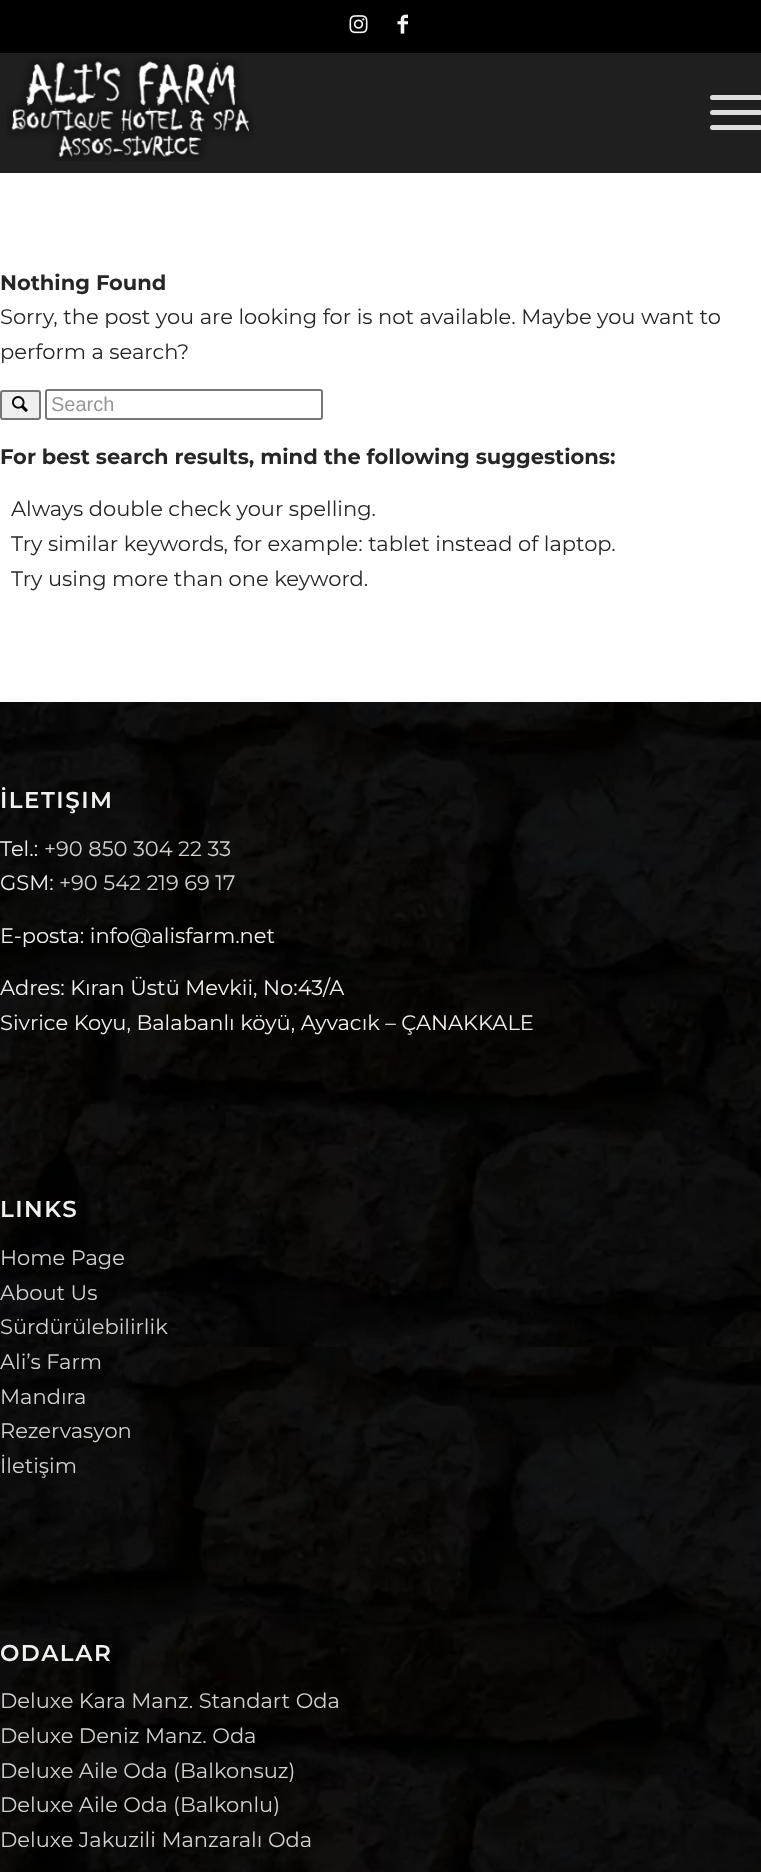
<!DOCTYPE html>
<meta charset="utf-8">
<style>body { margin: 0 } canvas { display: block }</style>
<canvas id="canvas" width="761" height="1872"></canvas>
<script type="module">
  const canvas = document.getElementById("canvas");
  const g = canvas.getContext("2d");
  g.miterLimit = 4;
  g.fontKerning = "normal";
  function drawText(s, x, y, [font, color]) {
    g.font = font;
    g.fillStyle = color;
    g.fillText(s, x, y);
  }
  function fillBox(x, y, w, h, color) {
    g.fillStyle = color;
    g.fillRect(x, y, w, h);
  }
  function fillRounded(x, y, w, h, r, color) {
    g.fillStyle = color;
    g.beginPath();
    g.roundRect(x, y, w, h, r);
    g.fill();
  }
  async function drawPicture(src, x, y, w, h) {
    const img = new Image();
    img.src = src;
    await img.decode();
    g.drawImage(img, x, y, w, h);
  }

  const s1 = ["bold 21px Montserrat", "#262626"];
  const s2 = ["21px Montserrat", "#262626"];
  const s3 = ["20px Liberation Sans", "#969696"];
  const s4 = ["600 23px Montserrat", "#F0F0F0"];
  const s5 = ["21px Montserrat", "#F0F0F0"];
  const s6 = ["21px Montserrat", "#D1D1D1"];

  fillBox(0, 0, 761, 1872, "#FFFFFF");
  fillBox(0, 0, 761, 53, "#000000");
  await drawPicture("pic1.png", 349, 15, 19, 19);
  await drawPicture("pic2.png", 397, 14, 11, 20);
  fillBox(0, 53, 761, 120, "#1F1F1F");
  await drawPicture("pic3.png", 7, 57, 247, 104);
  fillRounded(710, 110, 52, 5, 2.5, "#DEDEDE");
  fillRounded(710, 95, 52, 5, 2.5, "#DEDEDE");
  fillRounded(710, 125, 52, 5, 2.5, "#DEDEDE");
  drawText("Nothing Found", 0, 290, s1);
  drawText("Sorry, the post you are looking for is not available. Maybe you want to", 0, 324, s2);
  drawText("perform a search?", 0, 359, s2);
  g.fillStyle = "#EFEFEF";
  g.beginPath();
  g.roundRect(1, 391, 39, 28, 2);
  g.fill();
  g.strokeStyle = "#767676";
  g.lineWidth = 2;
  g.stroke();
  await drawPicture("pic4.png", 12, 396, 16, 16);
  g.beginPath();
  g.roundRect(46, 390, 276, 29, 2);
  g.stroke();
  drawText("Search", 51, 411, s3);
  drawText("For best search results, mind the following suggestions:", 0, 464, s1);
  drawText("Always double check your spelling.", 11, 516, s2);
  drawText("Try similar keywords, for example: tablet instead of laptop.", 11, 551, s2);
  drawText("Try using more than one keyword.", 11, 586, s2);
  await drawPicture("pic5.png", 0, 702, 761, 1170);
  g.letterSpacing = "1.5px";
  drawText("İLETIŞIM", 0, 808, s4);
  g.letterSpacing = "0px";
  drawText("Tel.:", 0, 856, s5);
  drawText("+90 850 304 22 33", 44, 856, s6);
  drawText("GSM:", 0, 890, s5);
  drawText("+90 542 219 69 17", 59, 890, s6);
  drawText("E-posta: info@alisfarm.net", 0, 943, s5);
  drawText("Adres: Kıran Üstü Mevkii, No:43/A", 0, 995, s5);
  drawText("Sivrice Koyu, Balabanlı köyü, Ayvacık – ÇANAKKALE", 0, 1030, s5);
  g.letterSpacing = "1.5px";
  drawText("LINKS", 0, 1217, s4);
  g.letterSpacing = "0px";
  drawText("Home Page", 0, 1265, s6);
  drawText("About Us", 0, 1300, s6);
  drawText("Sürdürülebilirlik", 0, 1334, s6);
  drawText("Ali’s Farm", 0, 1369, s6);
  drawText("Mandıra", 0, 1404, s6);
  drawText("Rezervasyon", 0, 1438, s6);
  drawText("İletişim", 0, 1473, s6);
  g.letterSpacing = "1.5px";
  drawText("ODALAR", 0, 1661, s4);
  g.letterSpacing = "0px";
  drawText("Deluxe Kara Manz. Standart Oda", 0, 1708, s6);
  drawText("Deluxe Deniz Manz. Oda", 0, 1743, s6);
  drawText("Deluxe Aile Oda (Balkonsuz)", 0, 1778, s6);
  drawText("Deluxe Aile Oda (Balkonlu)", 0, 1812, s6);
  drawText("Deluxe Jakuzili Manzaralı Oda", 0, 1847, s6);
</script>
